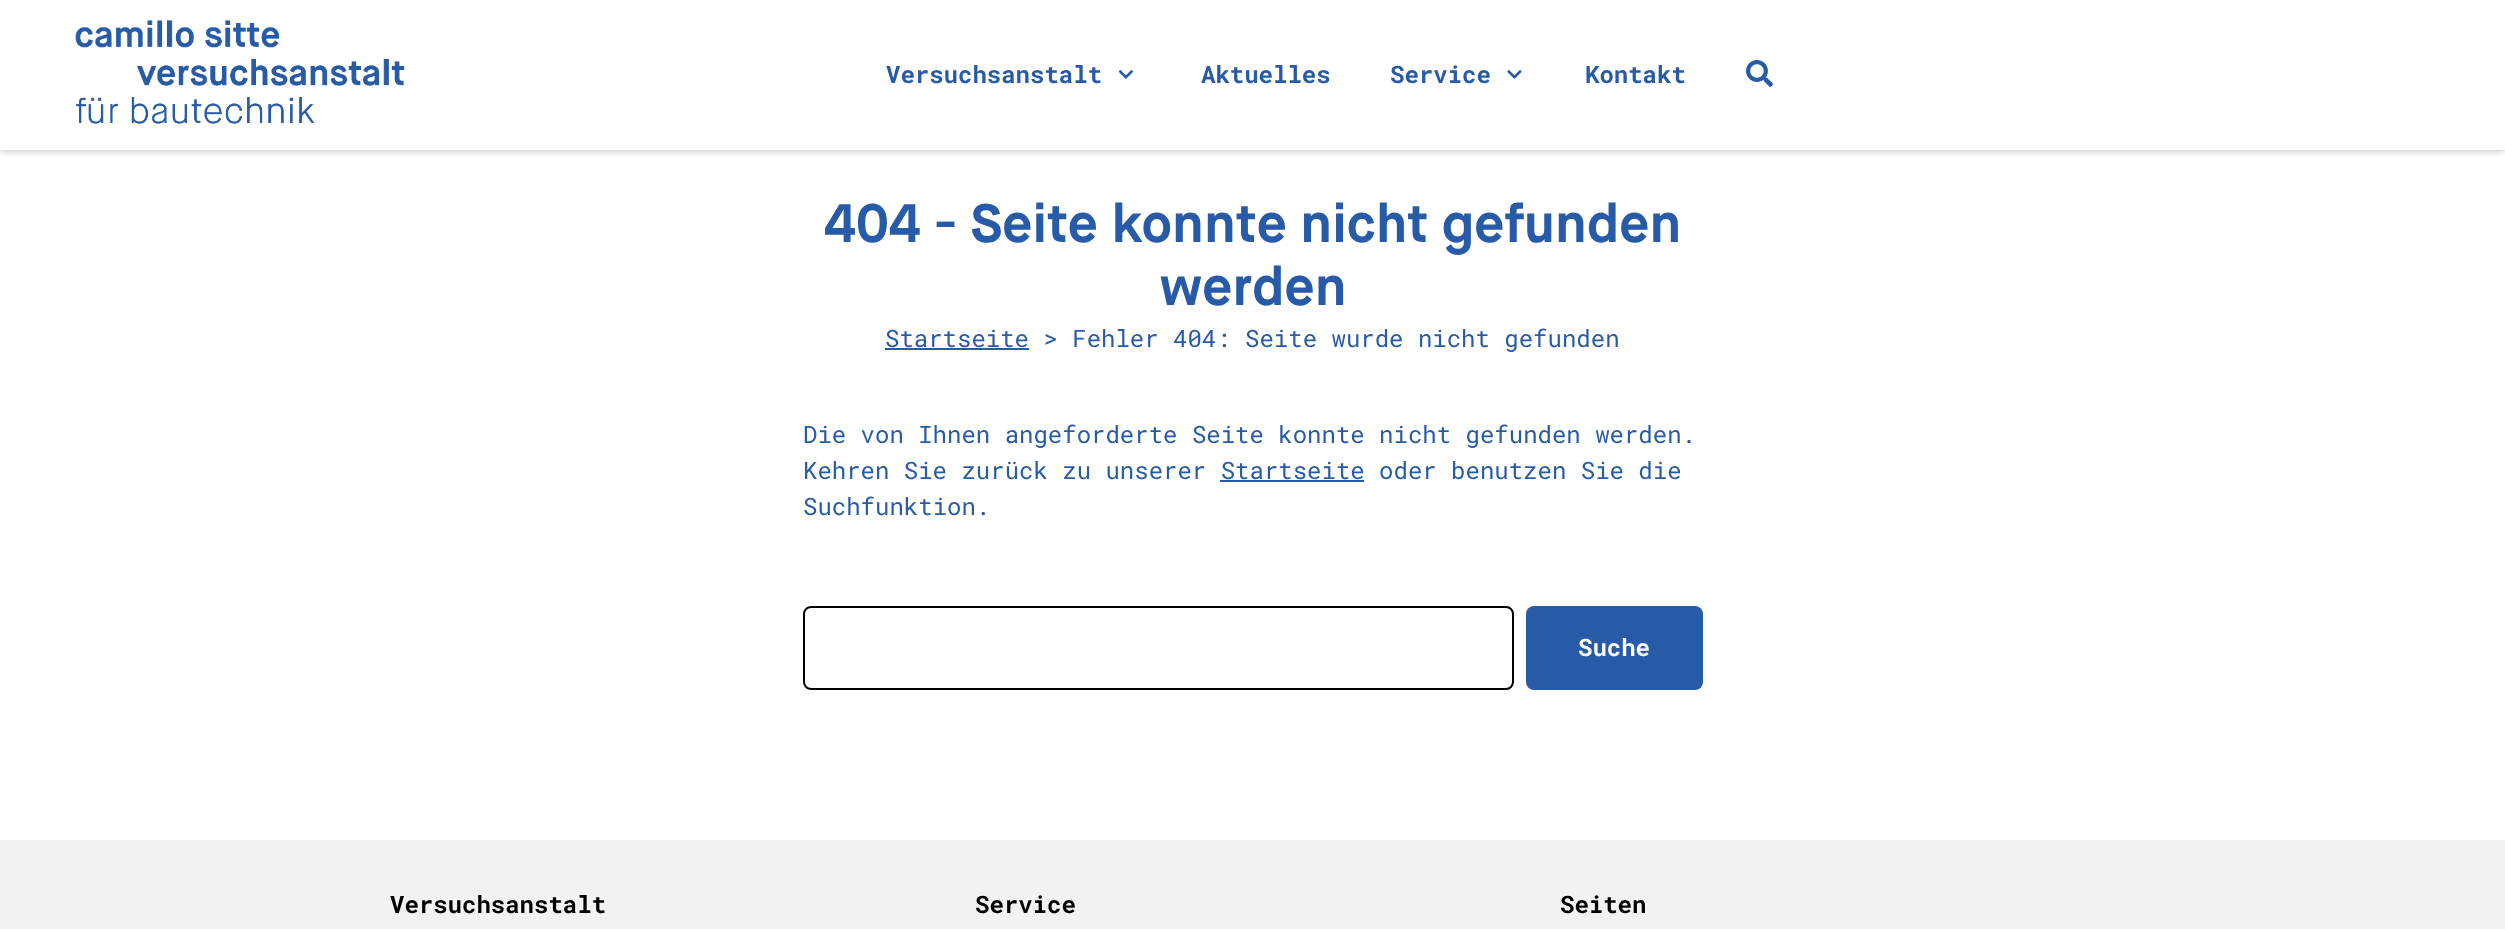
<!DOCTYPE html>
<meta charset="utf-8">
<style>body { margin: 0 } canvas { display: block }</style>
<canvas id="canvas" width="2505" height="929"></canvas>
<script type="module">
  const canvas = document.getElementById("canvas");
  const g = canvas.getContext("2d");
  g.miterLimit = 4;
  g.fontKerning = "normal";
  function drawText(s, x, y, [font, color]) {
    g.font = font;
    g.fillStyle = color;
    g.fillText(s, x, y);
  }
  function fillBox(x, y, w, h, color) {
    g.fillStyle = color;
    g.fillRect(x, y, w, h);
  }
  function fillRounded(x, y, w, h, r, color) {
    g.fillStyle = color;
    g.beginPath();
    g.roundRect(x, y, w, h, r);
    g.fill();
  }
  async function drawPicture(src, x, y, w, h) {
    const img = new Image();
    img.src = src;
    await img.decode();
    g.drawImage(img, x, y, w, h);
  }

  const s1 = ["bold 24px Roboto Mono", "#285BA7"];
  const s2 = ["bold 54px Maison Neue", "#285BA7"];
  const s3 = ["24px Roboto Mono", "#285BA7"];
  const s4 = ["bold 24px Roboto Mono", "#FFFFFF"];
  const s5 = ["bold 24px Roboto Mono", "#000000"];

  fillBox(0, 0, 2505, 929, "#FFFFFF");
  g.save();
  g.beginPath();
  g.rect(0, 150, 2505, 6);
  g.clip();
  g.fillStyle = "rgba(0, 0, 0, 0.3)";
  g.filter = "blur(4px)";
  g.beginPath();
  g.rect(0, 0, 2505, 150);
  g.fill();
  g.filter = "none";
  g.restore();
  await drawPicture("pic1.png", 75, 20, 330, 104);
  drawText("Versuchsanstalt", 886, 83, s1);
  await drawPicture("pic2.png", 1118, 70, 15, 9);
  drawText("Aktuelles", 1201, 83, s1);
  drawText("Service", 1390, 83, s1);
  await drawPicture("pic3.png", 1507, 70, 15, 9);
  drawText("Kontakt", 1585, 83, s1);
  await drawPicture("pic4.png", 1746, 60, 27, 27);
  drawText("404 - Seite konnte nicht gefunden", 824, 242, s2);
  drawText("werden", 1159, 305, s2);
  fillBox(885, 348, 144, 2, "#285BA7");
  drawText("Startseite > Fehler 404: Seite wurde nicht gefunden", 885, 347, s3);
  drawText("Die von Ihnen angeforderte Seite konnte nicht gefunden werden.", 803, 443, s3);
  drawText("Kehren Sie zurück zu unserer Startseite oder benutzen Sie die", 803, 479, s3);
  fillBox(1220, 480, 144, 2, "#285BA7");
  drawText("Suchfunktion.", 803, 515, s3);
  g.beginPath();
  g.roundRect(804, 607, 709, 82, 7);
  g.strokeStyle = "#000000";
  g.lineWidth = 2;
  g.stroke();
  fillRounded(1526, 606, 177, 84, 8, "#285BA7");
  drawText("Suche", 1578, 656, s4);
  fillBox(0, 840, 2505, 89, "#F2F2F2");
  drawText("Versuchsanstalt", 390, 913, s5);
  drawText("Service", 975, 913, s5);
  drawText("Seiten", 1560, 913, s5);
</script>
